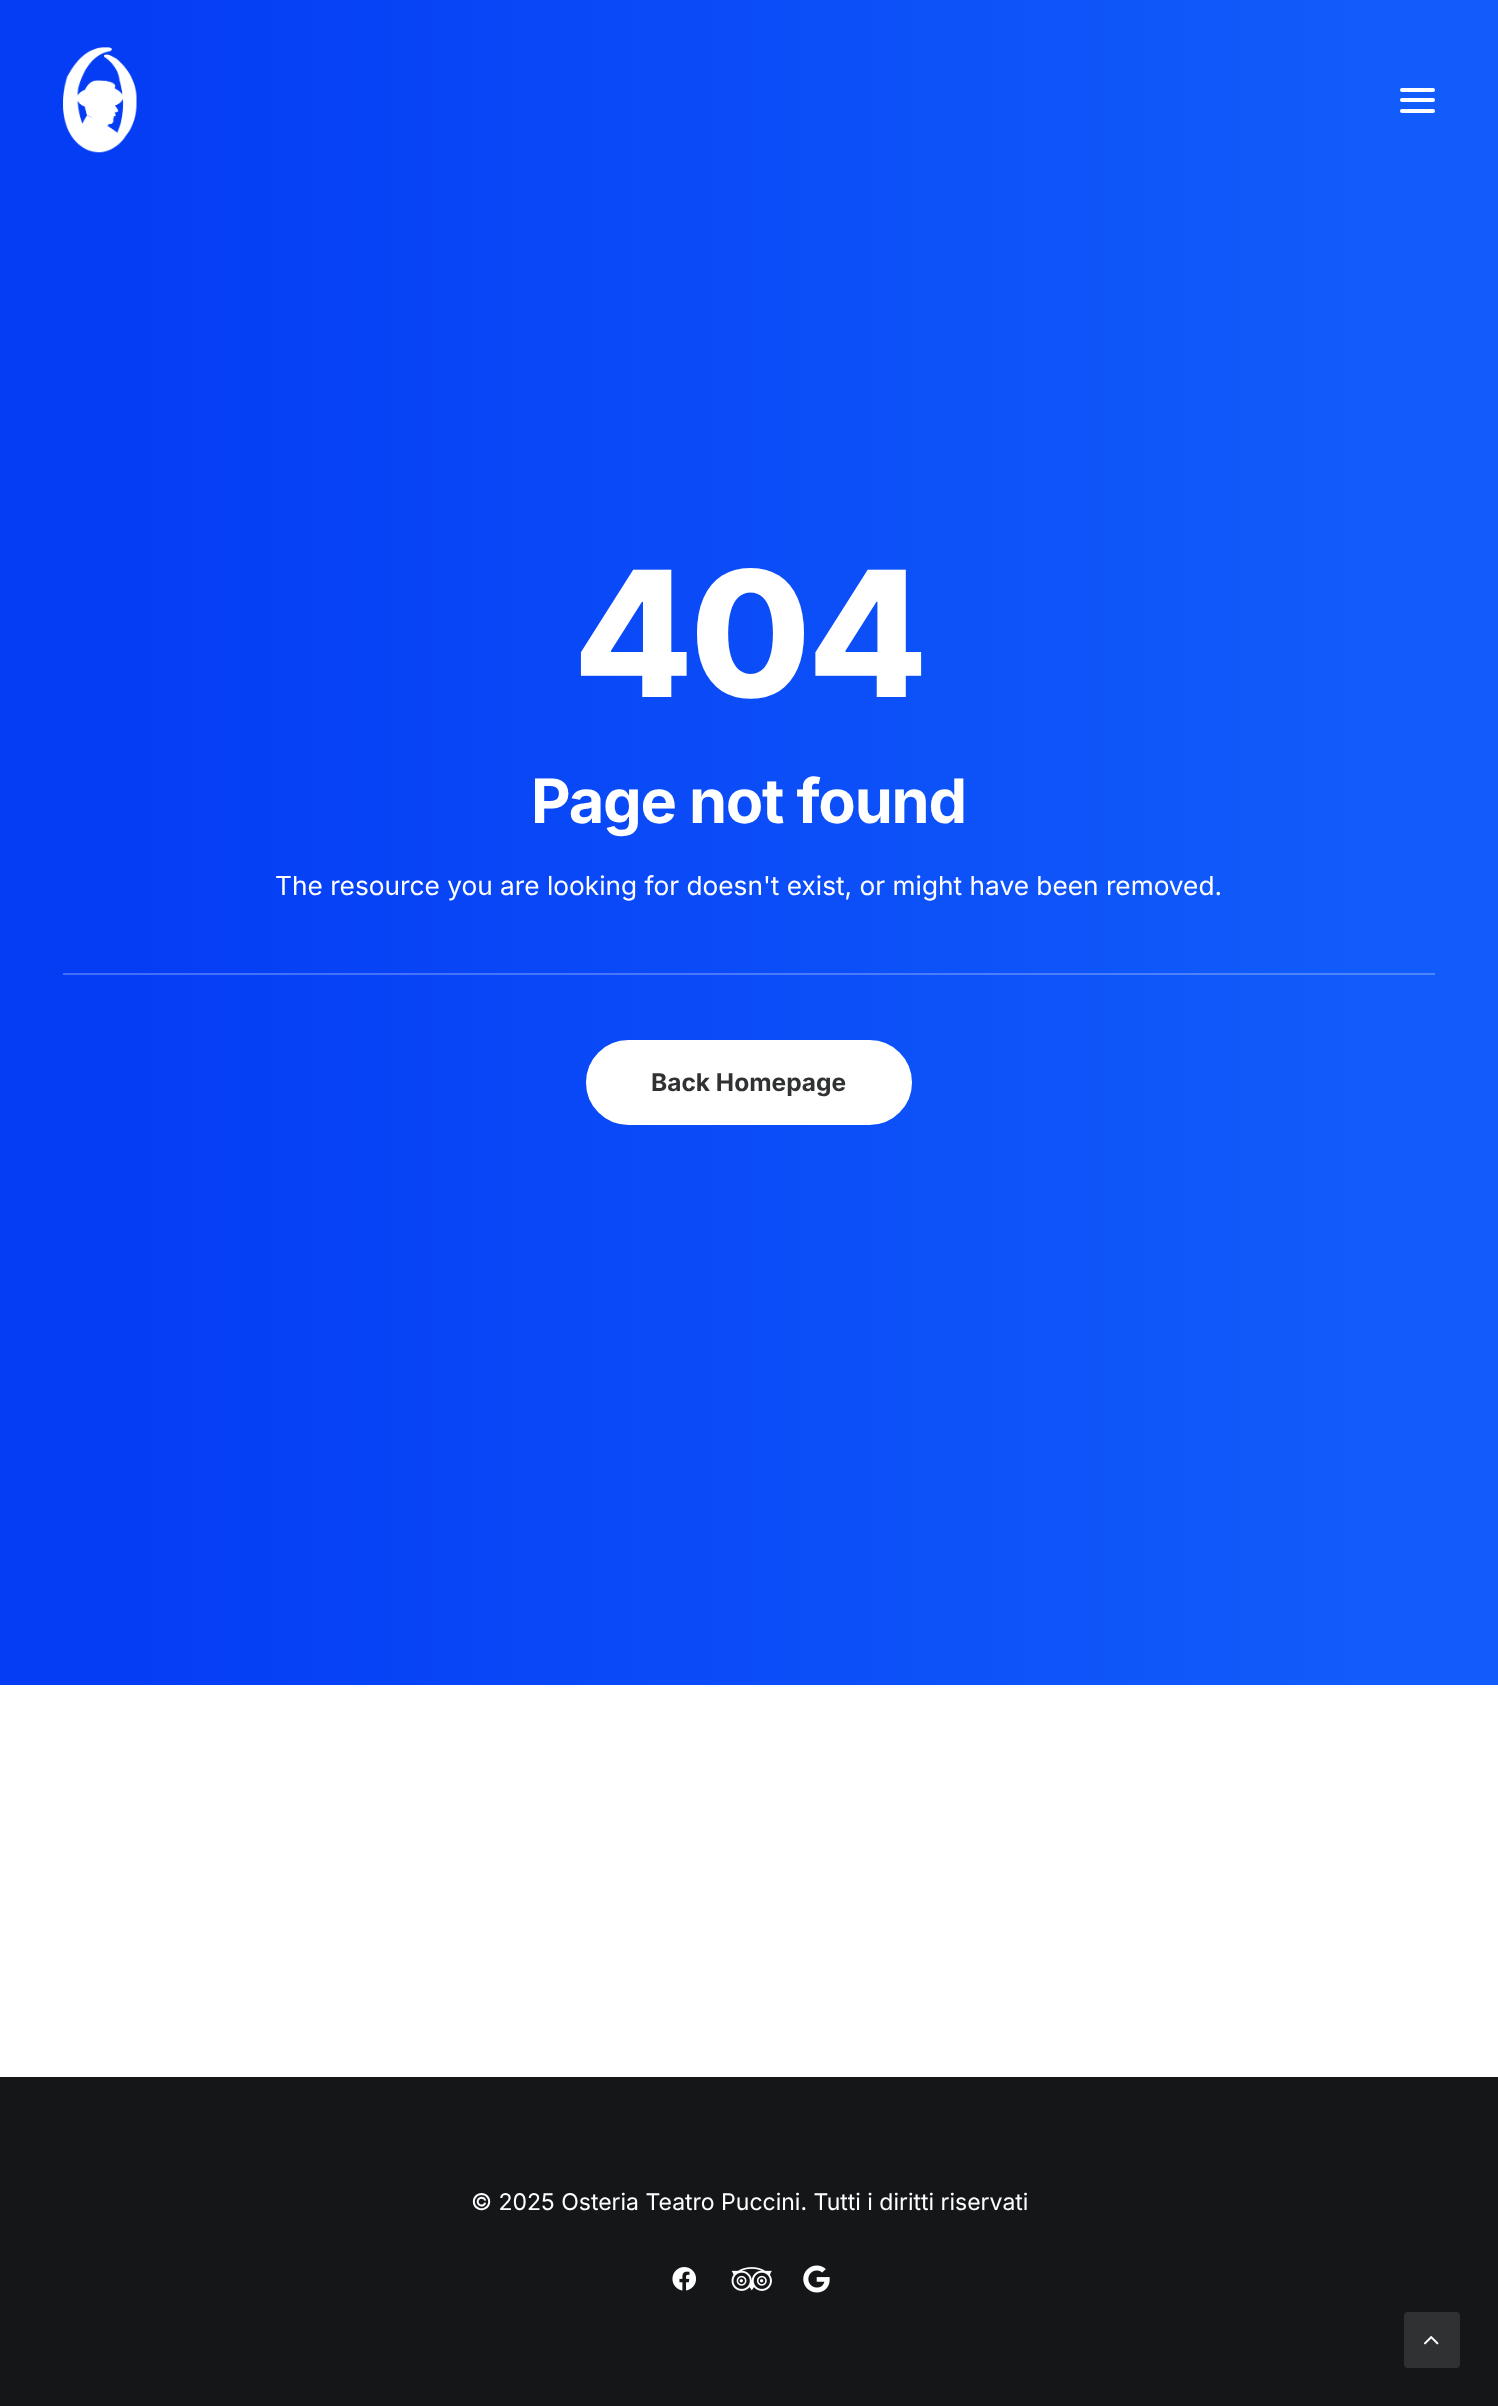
<!DOCTYPE html>
<meta charset="utf-8">
<style>body { margin: 0 } canvas { display: block }</style>
<canvas id="canvas" width="1498" height="2406"></canvas>
<script type="module">
  const canvas = document.getElementById("canvas");
  const g = canvas.getContext("2d");
  g.miterLimit = 4;
  g.fontKerning = "normal";
  function drawText(s, x, y, [font, color]) {
    g.font = font;
    g.fillStyle = color;
    g.fillText(s, x, y);
  }
  function fillBox(x, y, w, h, color) {
    g.fillStyle = color;
    g.fillRect(x, y, w, h);
  }
  function fillRounded(x, y, w, h, r, color) {
    g.fillStyle = color;
    g.beginPath();
    g.roundRect(x, y, w, h, r);
    g.fill();
  }
  async function drawPicture(src, x, y, w, h) {
    const img = new Image();
    img.src = src;
    await img.decode();
    g.drawImage(img, x, y, w, h);
  }
  let gradient;

  const s1 = ["800 175px Inter", "#FFFFFF"];
  const s2 = ["bold 61.25px Inter", "#FFFFFF"];
  const s3 = ["26.25px Inter", "#FFFFFF"];
  const s4 = ["bold 24.5px Inter", "#303133"];
  const s5 = ["23px Inter", "#FFFFFF"];

  fillBox(0, 0, 1498, 2406, "#141618");
  gradient = g.createLinearGradient(1498, 843, 0, 843);
  gradient.addColorStop(0.09, "#115CFA");
  gradient.addColorStop(0.91, "#053DF5");
  g.fillStyle = gradient;
  g.fillRect(0, 0, 1498, 1685);
  await drawPicture("pic1.png", 63, 47, 74, 106);
  fillRounded(1400, 98, 35, 4, 2, "#FFFFFF");
  fillRounded(1400, 88, 35, 4, 2, "#FFFFFF");
  fillRounded(1400, 109, 35, 4, 2, "#FFFFFF");
  gradient = g.createLinearGradient(1498, 843, 0, 843);
  gradient.addColorStop(0.09, "#4D85FB");
  gradient.addColorStop(0.91, "#446EF8");
  g.fillStyle = gradient;
  g.fillRect(63, 973, 1372, 2);
  g.letterSpacing = "-3.5px";
  drawText("404", 573, 697, s1);
  g.letterSpacing = "-1.25px";
  drawText("Page not found", 531, 823, s2);
  g.letterSpacing = "0px";
  drawText("The resource you are looking for doesn't exist, or might have been removed.", 275, 895, s3);
  g.beginPath();
  g.roundRect(587, 1041, 324, 83, 41.5);
  g.fill();
  g.strokeStyle = "#FFFFFF";
  g.lineWidth = 2;
  g.stroke();
  drawText("Back Homepage", 651, 1091, s4);
  fillBox(0, 1685, 1498, 392, "#FFFFFF");
  drawText("© 2025 Osteria Teatro Puccini. Tutti i diritti riservati", 471, 2210, s5);
  await drawPicture("pic2.png", 672, 2267, 25, 24);
  await drawPicture("pic3.png", 731, 2267, 41, 24);
  await drawPicture("pic4.png", 803, 2265, 27, 28);
  g.fillStyle = "#303133";
  g.beginPath();
  g.roundRect(1405, 2313, 54, 54, 3);
  g.fill();
  g.strokeStyle = "#303133";
  g.stroke();
  await drawPicture("pic5.png", 1423, 2335, 16, 10);
</script>
